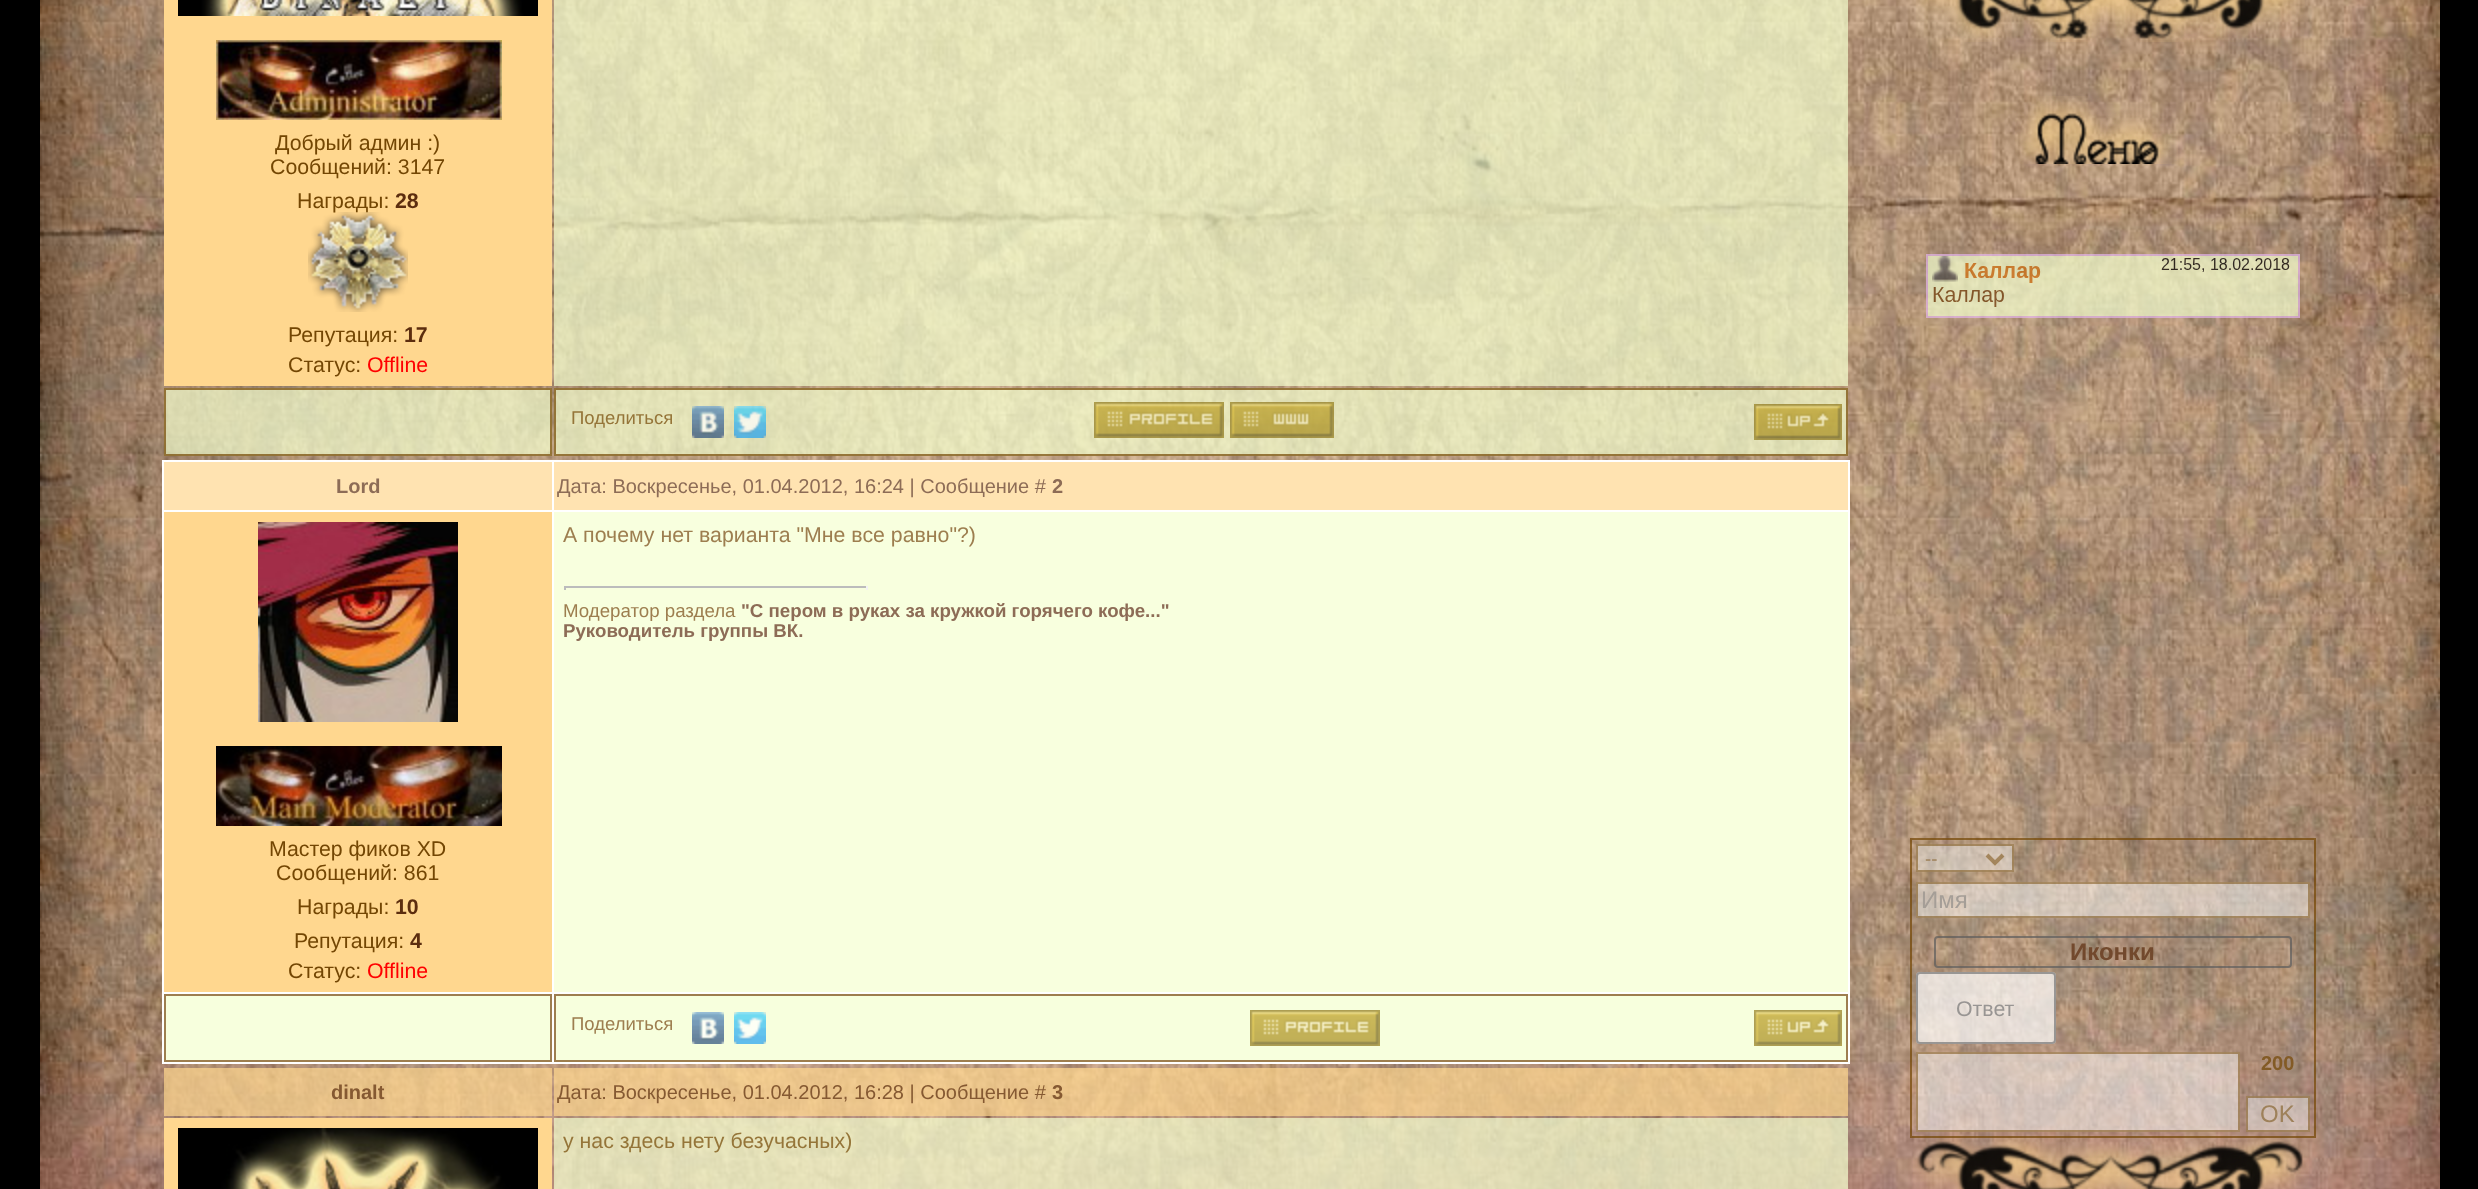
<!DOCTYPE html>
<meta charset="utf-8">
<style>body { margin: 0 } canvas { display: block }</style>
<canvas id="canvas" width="2478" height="1189"></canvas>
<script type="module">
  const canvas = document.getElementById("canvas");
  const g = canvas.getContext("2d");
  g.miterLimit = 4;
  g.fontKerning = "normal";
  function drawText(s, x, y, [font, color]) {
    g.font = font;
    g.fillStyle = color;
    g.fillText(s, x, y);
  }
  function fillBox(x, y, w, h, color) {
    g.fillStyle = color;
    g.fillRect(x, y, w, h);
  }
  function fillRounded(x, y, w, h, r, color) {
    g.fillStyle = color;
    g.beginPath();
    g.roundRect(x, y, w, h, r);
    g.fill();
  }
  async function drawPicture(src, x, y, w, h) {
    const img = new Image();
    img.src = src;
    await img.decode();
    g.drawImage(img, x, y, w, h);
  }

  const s1 = ["21.3px Liberation Sans", "#734603"];
  const s2 = ["bold 21.3px Liberation Sans", "#5C2D0E"];
  const s3 = ["21.3px Liberation Sans", "#FF0000"];
  const s4 = ["18.5px Liberation Sans", "#957539"];
  const s5 = ["bold 20px Liberation Sans", "#8D6C56"];
  const s6 = ["20px Liberation Sans", "#8D6C56"];
  const s7 = ["21.3px Liberation Sans", "#9D7E4F"];
  const s8 = ["18.7px Liberation Sans", "#9D7E4F"];
  const s9 = ["bold 18.7px Liberation Sans", "#8D6C56"];
  const s10 = ["18.5px Liberation Sans", "#9D7E4F"];
  const s11 = ["bold 20px Liberation Sans", "#855932"];
  const s12 = ["20px Liberation Sans", "#855932"];
  const s13 = ["21.3px Liberation Sans", "#957539"];
  const s14 = ["18.7px Liberation Sans", "#9E815A"];
  const s15 = ["24px Liberation Sans", "#A59E97"];
  const s16 = ["bold 24px Liberation Sans", "#72492D"];
  const s17 = ["21.3px Liberation Sans", "#989593"];
  const s18 = ["bold 20px Liberation Sans", "#835B26"];
  const s19 = ["24px Liberation Sans", "#9E815A"];

  fillBox(0, 0, 2478, 1189, "#000000");
  await drawPicture("pic1.png", 40, 0, 2400, 1189);
  fillBox(164, 0, 388, 386, "#FFD78F");
  await drawPicture("pic2.png", 178, 0, 360, 16);
  await drawPicture("pic3.png", 216, 40, 286, 80);
  drawText("Добрый админ :)", 275, 150, s1);
  drawText("Сообщений: 3147", 270, 174, s1);
  drawText("Награды:", 297, 208, s1);
  drawText("28", 395, 208, s2);
  await drawPicture("pic4.png", 308, 212, 100, 100);
  drawText("Репутация:", 288, 342, s1);
  drawText("17", 404, 342, s2);
  drawText("Статус:", 288, 372, s1);
  drawText("Offline", 367, 372, s3);
  fillBox(554, 0, 1294, 386, "rgba(244, 255, 207, 0.7)");
  fillBox(164, 388, 388, 68, "rgba(244, 255, 207, 0.7)");
  g.strokeStyle = "rgba(115, 70, 3, 0.7)";
  g.lineWidth = 2;
  g.strokeRect(165, 389, 386, 66);
  fillBox(554, 388, 1294, 68, "rgba(244, 255, 207, 0.7)");
  g.strokeRect(555, 389, 1292, 66);
  drawText("Поделиться", 571, 424, s4);
  await drawPicture("pic5.png", 692, 406, 32, 32);
  await drawPicture("pic6.png", 734, 406, 32, 32);
  await drawPicture("pic7.png", 1094, 402, 130, 36);
  await drawPicture("pic8.png", 1230, 402, 104, 36);
  await drawPicture("pic9.png", 1754, 404, 88, 36);
  fillBox(162, 460, 1688, 604, "#FFFFFF");
  fillBox(164, 462, 388, 48, "#FFE3B1");
  drawText("Lord", 336, 493, s5);
  fillBox(554, 462, 1294, 48, "#FFE3B1");
  drawText("Дата: Воскресенье, 01.04.2012, 16:24 | Сообщение #", 557, 493, s6);
  drawText("2", 1052, 493, s5);
  fillBox(554, 512, 1294, 480, "#F8FFDE");
  drawText("А почему нет варианта \"Мне все равно\"?)", 563, 542, s7);
  fillBox(564, 586, 304, 2, "#BCBCBC");
  fillBox(866, 586, 2, 4, "#F3F3F3");
  fillBox(564, 586, 2, 4, "#BCBCBC");
  drawText("Модератор раздела", 563, 617, s8);
  drawText("\"С пером в руках за кружкой горячего кофе...\"", 741, 617, s9);
  drawText("Руководитель группы ВК.", 563, 637, s9);
  fillBox(164, 512, 388, 480, "#FFD78F");
  await drawPicture("pic10.png", 258, 522, 200, 200);
  await drawPicture("pic11.png", 216, 746, 286, 80);
  drawText("Мастер фиков XD", 269, 856, s1);
  drawText("Сообщений: 861", 276, 880, s1);
  drawText("Награды:", 297, 914, s1);
  drawText("10", 395, 914, s2);
  drawText("Репутация:", 294, 948, s1);
  drawText("4", 410, 948, s2);
  drawText("Статус:", 288, 978, s1);
  drawText("Offline", 367, 978, s3);
  g.fillStyle = "#F7FFDD";
  g.beginPath();
  g.rect(165, 995, 386, 66);
  g.fill();
  g.strokeStyle = "#9D7E4F";
  g.stroke();
  g.beginPath();
  g.rect(555, 995, 1292, 66);
  g.fill();
  g.stroke();
  drawText("Поделиться", 571, 1030, s10);
  await drawPicture("pic12.png", 692, 1012, 32, 32);
  await drawPicture("pic13.png", 734, 1012, 32, 32);
  await drawPicture("pic14.png", 1250, 1010, 130, 36);
  await drawPicture("pic15.png", 1754, 1010, 88, 36);
  fillBox(164, 1068, 388, 48, "rgba(255, 215, 143, 0.7)");
  drawText("dinalt", 331, 1099, s11);
  fillBox(554, 1068, 1294, 48, "rgba(255, 215, 143, 0.7)");
  drawText("Дата: Воскресенье, 01.04.2012, 16:28 | Сообщение #", 557, 1099, s12);
  drawText("3", 1052, 1099, s11);
  fillBox(164, 1118, 388, 71, "#FFD78F");
  await drawPicture("pic16.png", 178, 1128, 360, 61);
  fillBox(554, 1118, 1294, 71, "rgba(244, 255, 207, 0.7)");
  drawText("у нас здесь нету безучасных)", 563, 1148, s13);
  await drawPicture("pic17.png", 1916, 0, 389, 42);
  await drawPicture("pic18.png", 2015, 96, 163, 68);
  await drawPicture("pic19.png", 1926, 254, 374, 64);
  g.strokeStyle = "rgba(115, 70, 3, 0.7)";
  g.strokeRect(1911, 839, 404, 298);
  fillBox(1916, 844, 98, 28, "rgba(239, 239, 239, 0.49)");
  g.strokeStyle = "rgba(115, 70, 3, 0.49)";
  g.strokeRect(1917, 845, 96, 26);
  g.beginPath();
  g.moveTo(1987, 855);
  g.lineTo(1995, 863);
  g.lineTo(2003, 855);
  g.lineWidth = 4;
  g.stroke();
  drawText("--", 1925, 865, s14);
  fillBox(1916, 882, 394, 36, "rgba(255, 255, 255, 0.49)");
  g.lineWidth = 2;
  g.strokeRect(1917, 883, 392, 34);
  drawText("Имя", 1921, 908, s15);
  g.beginPath();
  g.roundRect(1935, 937, 356, 30, 3);
  g.strokeStyle = "rgba(93, 93, 93, 0.7)";
  g.stroke();
  drawText("Иконки", 2070, 960, s16);
  fillRounded(1916, 972, 140, 72, 4, "rgba(255, 255, 255, 0.7)");
  g.beginPath();
  g.roundRect(1917, 973, 138, 70, 3);
  g.strokeStyle = "rgba(118, 118, 118, 0.7)";
  g.stroke();
  drawText("Ответ", 1956, 1016, s17);
  fillBox(1916, 1052, 324, 80, "rgba(255, 255, 255, 0.49)");
  g.strokeStyle = "rgba(115, 70, 3, 0.49)";
  g.strokeRect(1917, 1053, 322, 78);
  drawText("200", 2261, 1070, s18);
  fillBox(2246, 1096, 64, 36, "rgba(239, 239, 239, 0.49)");
  g.strokeRect(2247, 1097, 62, 34);
  drawText("OK", 2260, 1122, s19);
  await drawPicture("pic20.png", 1913, 1138, 396, 51);
</script>
